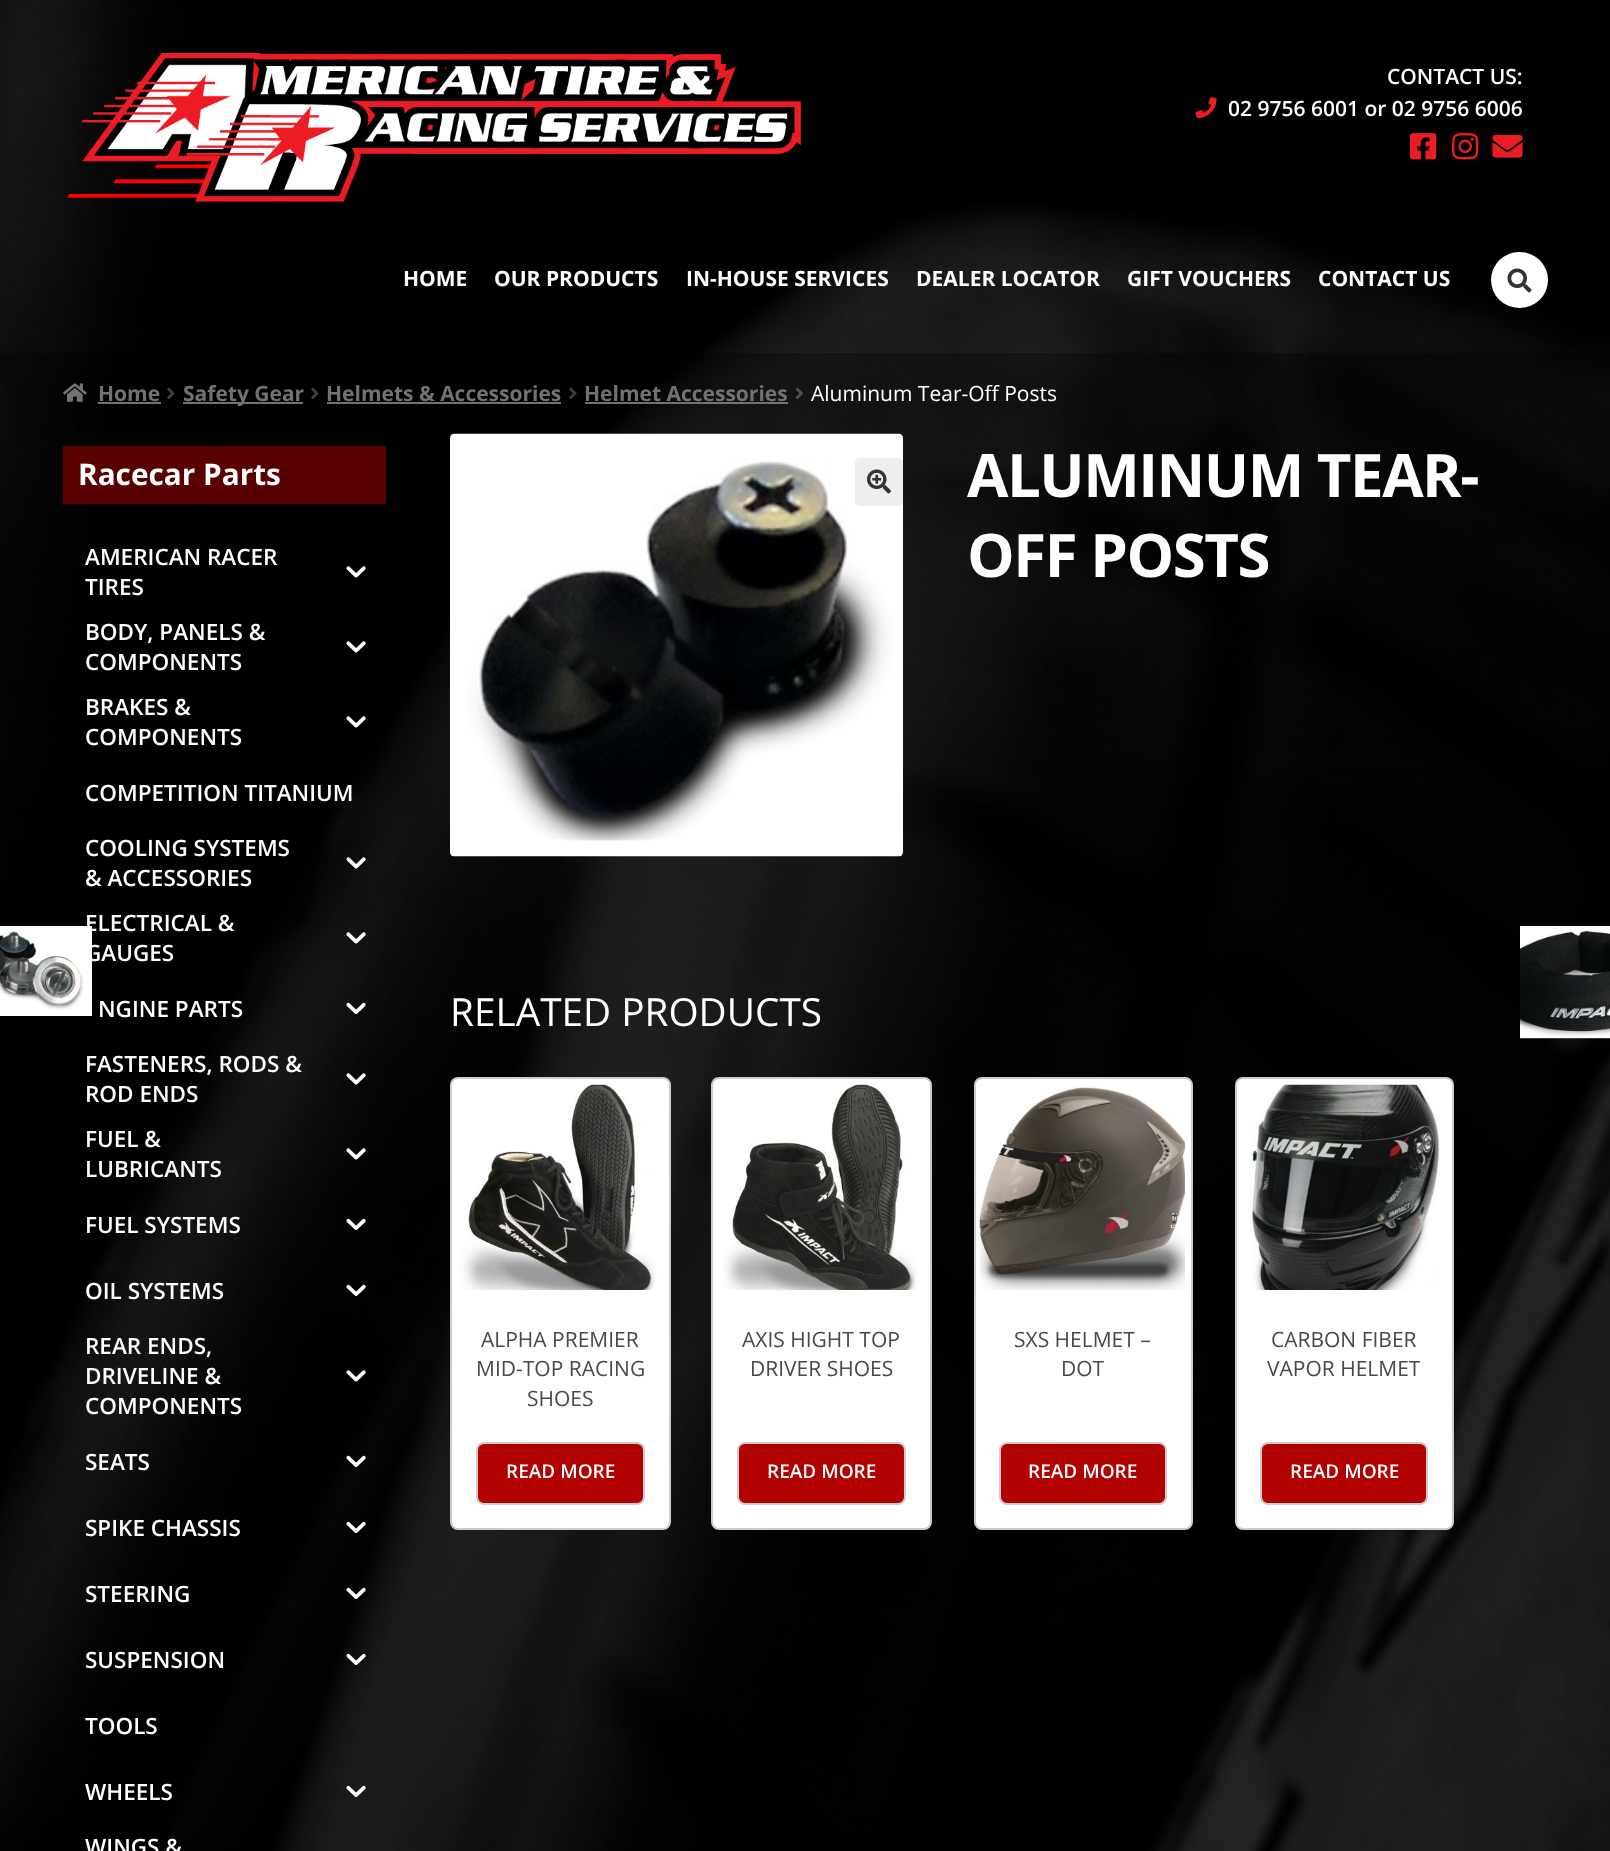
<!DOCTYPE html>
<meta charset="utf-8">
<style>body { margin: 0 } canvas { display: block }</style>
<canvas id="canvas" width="1610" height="1851"></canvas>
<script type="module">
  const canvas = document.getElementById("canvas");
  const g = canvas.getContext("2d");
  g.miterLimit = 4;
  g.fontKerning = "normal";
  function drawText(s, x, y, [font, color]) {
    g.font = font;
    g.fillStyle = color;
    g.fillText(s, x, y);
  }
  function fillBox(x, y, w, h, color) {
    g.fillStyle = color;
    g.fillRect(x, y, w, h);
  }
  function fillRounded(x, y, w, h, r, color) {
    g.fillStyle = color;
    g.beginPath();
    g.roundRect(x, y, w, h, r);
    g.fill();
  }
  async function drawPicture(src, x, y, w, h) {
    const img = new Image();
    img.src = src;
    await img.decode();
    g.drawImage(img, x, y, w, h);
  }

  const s1 = ["600 21px Open Sans", "#FFFFFF"];
  const s2 = ["bold 21px Open Sans", "#FFFFFF"];
  const s3 = ["bold 21px Open Sans", "#727272"];
  const s4 = ["21px Open Sans", "#FFFFFF"];
  const s5 = ["bold 29.75px Open Sans", "#FFFFFF"];
  const s6 = ["600 22.5px Open Sans", "#FFFFFF"];
  const s7 = ["bold 60px Open Sans", "#FFFFFF"];
  const s8 = ["38.75px Open Sans", "#FFFFFF"];
  const s9 = ["21px Open Sans", "#494949"];
  const s10 = ["600 19px Open Sans", "#FFFFFF"];

  fillBox(0, 0, 1610, 1851, "#FFFFFF");
  await drawPicture("pic1.png", 0, 0, 1610, 1851);
  await drawPicture("pic2.png", 67, 53, 735, 149);
  drawText("CONTACT US:", 1387, 84, s1);
  await drawPicture("pic3.png", 1195, 97, 22, 22);
  drawText("02 9756 6001 or 02 9756 6006", 1228, 116, s1);
  await drawPicture("pic4.png", 1410, 133, 27, 27);
  await drawPicture("pic5.png", 1452, 133, 27, 27);
  await drawPicture("pic6.png", 1492, 135, 31, 23);
  drawText("HOME", 403, 286, s2);
  drawText("OUR PRODUCTS", 494, 286, s2);
  drawText("IN-HOUSE SERVICES", 686, 286, s2);
  drawText("DEALER LOCATOR", 916, 286, s2);
  drawText("GIFT VOUCHERS", 1127, 286, s2);
  drawText("CONTACT US", 1318, 286, s2);
  fillRounded(1491, 252, 57, 56, 28, "#FFFFFF");
  await drawPicture("pic7.png", 1507, 268, 25, 25);
  fillBox(0, 353, 1610, 81, "rgba(0, 0, 0, 0.3)");
  await drawPicture("pic8.png", 63, 383, 24, 19);
  drawText("Home", 98, 401, s3);
  fillBox(98, 402, 63, 2, "#727272");
  await drawPicture("pic9.png", 167, 387, 8, 12);
  fillBox(183, 402, 120, 2, "#727272");
  drawText("Safety Gear", 183, 401, s3);
  await drawPicture("pic9.png", 311, 387, 8, 12);
  drawText("Helmets & Accessories", 326, 401, s3);
  fillBox(327, 402, 234, 2, "#727272");
  await drawPicture("pic9.png", 569, 387, 8, 12);
  drawText("Helmet Accessories", 584, 401, s3);
  fillBox(585, 402, 203, 2, "#727272");
  await drawPicture("pic10.png", 795, 387, 8, 12);
  drawText("Aluminum Tear-Off Posts", 811, 401, s4);
  fillBox(0, 434, 1610, 1417, "rgba(0, 0, 0, 0.3)");
  fillBox(63, 446, 323, 58, "rgba(177, 1, 1, 0.5)");
  fillBox(63, 503, 323, 1, "rgba(0, 0, 0, 0.05)");
  drawText("Racecar Parts", 78, 485, s5);
  drawText("AMERICAN RACER", 85, 565, s6);
  drawText("TIRES", 85, 595, s6);
  await drawPicture("pic11.png", 346, 566, 20, 12);
  drawText("BODY, PANELS &", 85, 640, s6);
  drawText("COMPONENTS", 85, 670, s6);
  await drawPicture("pic12.png", 346, 641, 20, 12);
  drawText("BRAKES &", 85, 715, s6);
  drawText("COMPONENTS", 85, 745, s6);
  await drawPicture("pic12.png", 346, 716, 20, 12);
  drawText("COMPETITION TITANIUM", 85, 801, s6);
  drawText("COOLING SYSTEMS", 85, 856, s6);
  drawText("& ACCESSORIES", 85, 886, s6);
  await drawPicture("pic13.png", 346, 857, 20, 12);
  drawText("ELECTRICAL &", 85, 931, s6);
  drawText("GAUGES", 85, 961, s6);
  await drawPicture("pic14.png", 346, 932, 20, 12);
  drawText("NGINE PARTS", 98, 1017, s6);
  await drawPicture("pic15.png", 346, 1002, 20, 12);
  drawText("FASTENERS, RODS &", 85, 1072, s6);
  drawText("ROD ENDS", 85, 1102, s6);
  await drawPicture("pic16.png", 346, 1073, 20, 12);
  drawText("FUEL &", 85, 1147, s6);
  drawText("LUBRICANTS", 85, 1177, s6);
  await drawPicture("pic17.png", 346, 1148, 20, 12);
  drawText("FUEL SYSTEMS", 85, 1233, s6);
  await drawPicture("pic18.png", 346, 1218, 20, 12);
  drawText("OIL SYSTEMS", 85, 1299, s6);
  await drawPicture("pic19.png", 346, 1284, 20, 12);
  drawText("REAR ENDS,", 85, 1354, s6);
  drawText("DRIVELINE &", 85, 1384, s6);
  drawText("COMPONENTS", 85, 1414, s6);
  await drawPicture("pic20.png", 346, 1370, 20, 12);
  drawText("SEATS", 85, 1470, s6);
  await drawPicture("pic21.png", 346, 1455, 20, 12);
  drawText("SPIKE CHASSIS", 85, 1536, s6);
  await drawPicture("pic22.png", 346, 1521, 20, 12);
  drawText("STEERING", 85, 1602, s6);
  await drawPicture("pic23.png", 346, 1587, 20, 12);
  drawText("SUSPENSION", 85, 1668, s6);
  await drawPicture("pic24.png", 346, 1653, 20, 12);
  drawText("TOOLS", 85, 1734, s6);
  drawText("WHEELS", 85, 1800, s6);
  await drawPicture("pic25.png", 346, 1785, 20, 12);
  drawText("WINGS &", 85, 1855, s6);
  await drawPicture("pic26.png", 450, 433, 453, 424);
  fillRounded(855, 458, 48, 48, 5, "#EEEEEE");
  await drawPicture("pic27.png", 867, 469, 24, 25);
  g.letterSpacing = "-1.5px";
  drawText("ALUMINUM TEAR-", 967, 497, s7);
  drawText("OFF POSTS", 967, 577, s7);
  g.fillStyle = "rgba(0, 0, 0, 0.2)";
  g.filter = "blur(4px)";
  g.beginPath();
  g.rect(-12, 926, 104, 90);
  g.fill();
  g.filter = "none";
  fillBox(0, 926, 92, 90, "#FFFFFF");
  await drawPicture("pic28.png", 0, 931, 84, 79);
  fillBox(1520, 926, 90, 112, "#FFFFFF");
  await drawPicture("pic29.png", 1520, 930, 90, 109);
  g.letterSpacing = "0px";
  drawText("RELATED PRODUCTS", 450, 1026, s8);
  g.beginPath();
  g.roundRect(451, 1078, 219, 451, 7);
  g.fill();
  g.strokeStyle = "#CCCCCC";
  g.lineWidth = 2;
  g.stroke();
  await drawPicture("pic30.png", 460, 1084, 197, 206);
  drawText("ALPHA PREMIER", 481, 1347, s9);
  drawText("MID-TOP RACING", 476, 1376, s9);
  drawText("SHOES", 527, 1406, s9);
  g.fillStyle = "#B10101";
  g.beginPath();
  g.roundRect(477, 1443, 167, 61, 7);
  g.fill();
  g.stroke();
  drawText("READ MORE", 506, 1478, s10);
  g.beginPath();
  g.roundRect(712, 1078, 219, 451, 7);
  g.fill();
  g.stroke();
  await drawPicture("pic31.png", 723, 1084, 195, 206);
  drawText("AXIS HIGHT TOP", 742, 1347, s9);
  drawText("DRIVER SHOES", 750, 1376, s9);
  g.fillStyle = "#B10101";
  g.beginPath();
  g.roundRect(738, 1443, 167, 61, 7);
  g.fill();
  g.stroke();
  drawText("READ MORE", 767, 1478, s10);
  g.beginPath();
  g.roundRect(975, 1078, 217, 451, 7);
  g.fill();
  g.stroke();
  await drawPicture("pic32.png", 979, 1085, 206, 205);
  drawText("SXS HELMET –", 1014, 1347, s9);
  drawText("DOT", 1061, 1376, s9);
  g.fillStyle = "#B10101";
  g.beginPath();
  g.roundRect(1000, 1443, 166, 61, 7);
  g.fill();
  g.stroke();
  drawText("READ MORE", 1028, 1478, s10);
  g.beginPath();
  g.roundRect(1236, 1078, 217, 451, 7);
  g.fill();
  g.stroke();
  await drawPicture("pic33.png", 1250, 1084, 190, 206);
  drawText("CARBON FIBER", 1271, 1347, s9);
  drawText("VAPOR HELMET", 1267, 1376, s9);
  g.fillStyle = "#B10101";
  g.beginPath();
  g.roundRect(1261, 1443, 166, 61, 7);
  g.fill();
  g.stroke();
  drawText("READ MORE", 1290, 1478, s10);
</script>
